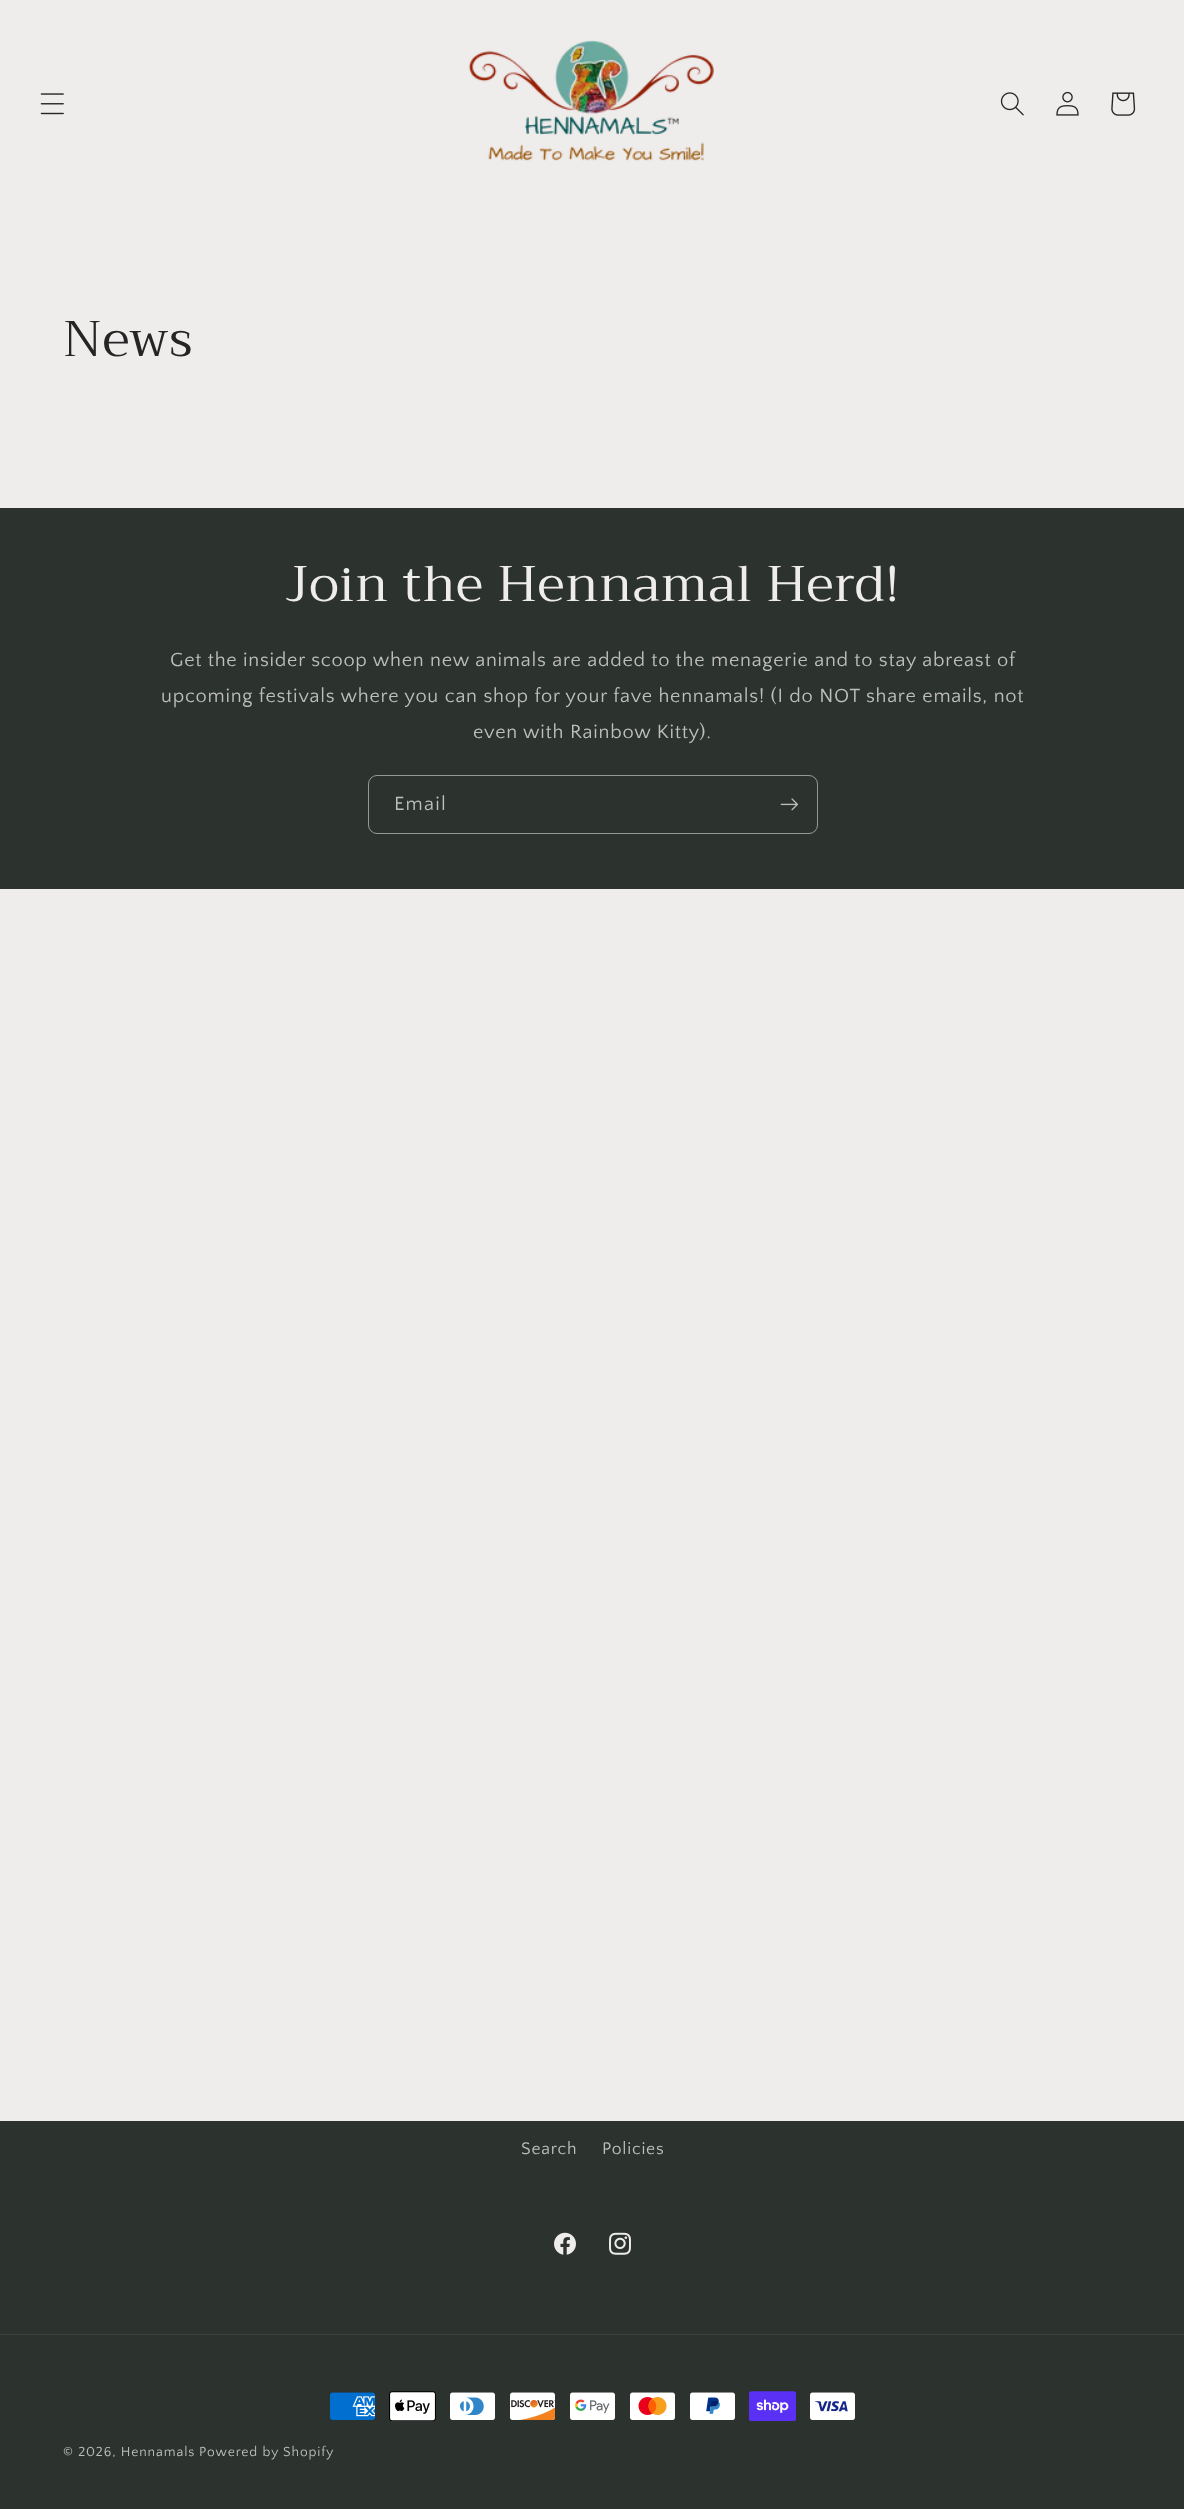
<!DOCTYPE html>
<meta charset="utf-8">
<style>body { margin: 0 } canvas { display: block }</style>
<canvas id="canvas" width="1184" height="2509"></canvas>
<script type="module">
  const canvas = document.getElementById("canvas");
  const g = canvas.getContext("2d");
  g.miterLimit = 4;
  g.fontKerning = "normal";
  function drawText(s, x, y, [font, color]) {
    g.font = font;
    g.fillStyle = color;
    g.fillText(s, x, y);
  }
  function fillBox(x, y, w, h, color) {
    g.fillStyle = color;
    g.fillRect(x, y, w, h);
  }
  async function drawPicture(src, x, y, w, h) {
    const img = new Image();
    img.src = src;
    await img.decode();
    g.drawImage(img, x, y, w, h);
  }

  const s1 = ["50px Trirong", "#252525"];
  const s2 = ["50px Trirong", "#EFECEC"];
  const s3 = ["20px Quattrocento Sans", "#BEBEBD"];
  const s4 = ["17.5px Quattrocento Sans", "#BEBEBD"];
  const s5 = ["13.75px Quattrocento Sans", "#BEBEBD"];

  fillBox(0, 0, 1184, 2509, "#EFECEC");
  await drawPicture("pic1.png", 40, 93, 24, 22);
  await drawPicture("pic2.png", 468, 40, 246, 121);
  await drawPicture("pic3.png", 1000, 92, 24, 24);
  await drawPicture("pic4.png", 1056, 91, 23, 25);
  await drawPicture("pic5.png", 1111, 92, 25, 24);
  g.letterSpacing = "0.75px";
  drawText("News", 63, 356, s1);
  fillBox(0, 508, 1184, 381, "#2C332F");
  drawText("Join the Hennamal Herd!", 285, 601, s2);
  drawText("Get the insider scoop when new animals are added to the menagerie and to stay abreast of", 170, 666, s3);
  drawText("upcoming festivals where you can shop for your fave hennamals! (I do NOT share emails, not", 161, 702, s3);
  drawText("even with Rainbow Kitty).", 473, 738, s3);
  g.beginPath();
  g.roundRect(368.5, 775.5, 449, 58, 8.5);
  g.strokeStyle = "#979997";
  g.stroke();
  g.letterSpacing = "1.25px";
  drawText("Email", 394, 810, s3);
  await drawPicture("pic6.png", 780, 798, 18, 13);
  fillBox(0, 2121, 1184, 388, "#2C332F");
  g.letterSpacing = "0.75px";
  drawText("Search", 521, 2154, s4);
  drawText("Policies", 602, 2154, s4);
  await drawPicture("pic7.png", 554, 2232, 22, 23);
  await drawPicture("pic8.png", 609, 2232, 22, 23);
  fillBox(0, 2334, 1184, 1, "#3C423E");
  await drawPicture("pic9.png", 330, 2392, 45, 28);
  await drawPicture("pic10.png", 389, 2391, 47, 30);
  await drawPicture("pic11.png", 450, 2392, 45, 28);
  await drawPicture("pic12.png", 510, 2392, 45, 28);
  await drawPicture("pic13.png", 570, 2392, 45, 28);
  await drawPicture("pic14.png", 630, 2392, 45, 28);
  await drawPicture("pic15.png", 690, 2392, 45, 28);
  await drawPicture("pic16.png", 749, 2391, 47, 30);
  await drawPicture("pic17.png", 810, 2392, 45, 28);
  g.letterSpacing = "0.9px";
  drawText("© 2026, Hennamals", 63, 2456, s5);
  drawText("Powered by Shopify", 199, 2456, s5);
</script>
